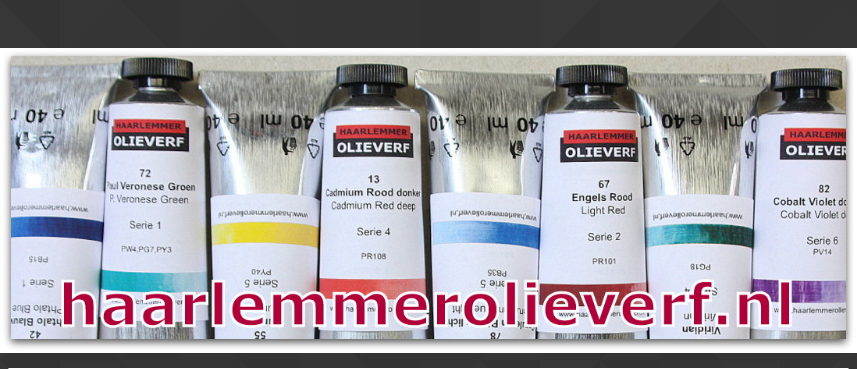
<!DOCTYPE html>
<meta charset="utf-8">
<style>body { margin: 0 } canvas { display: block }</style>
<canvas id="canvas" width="857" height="369"></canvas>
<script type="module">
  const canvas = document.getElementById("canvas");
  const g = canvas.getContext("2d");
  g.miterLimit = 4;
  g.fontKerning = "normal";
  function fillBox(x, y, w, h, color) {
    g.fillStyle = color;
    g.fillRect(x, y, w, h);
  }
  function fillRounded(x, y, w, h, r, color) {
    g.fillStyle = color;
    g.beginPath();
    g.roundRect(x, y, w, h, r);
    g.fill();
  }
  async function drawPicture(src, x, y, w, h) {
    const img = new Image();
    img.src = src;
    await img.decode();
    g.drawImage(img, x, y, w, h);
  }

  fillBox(0, 0, 857, 369, "#FFFFFF");
  await drawPicture("pic1.png", 0, 0, 857, 369);
  await drawPicture("pic2.png", 0, 48, 857, 305);
  fillRounded(8, 368, 841, 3, 2, "#FFFFFF");
</script>
